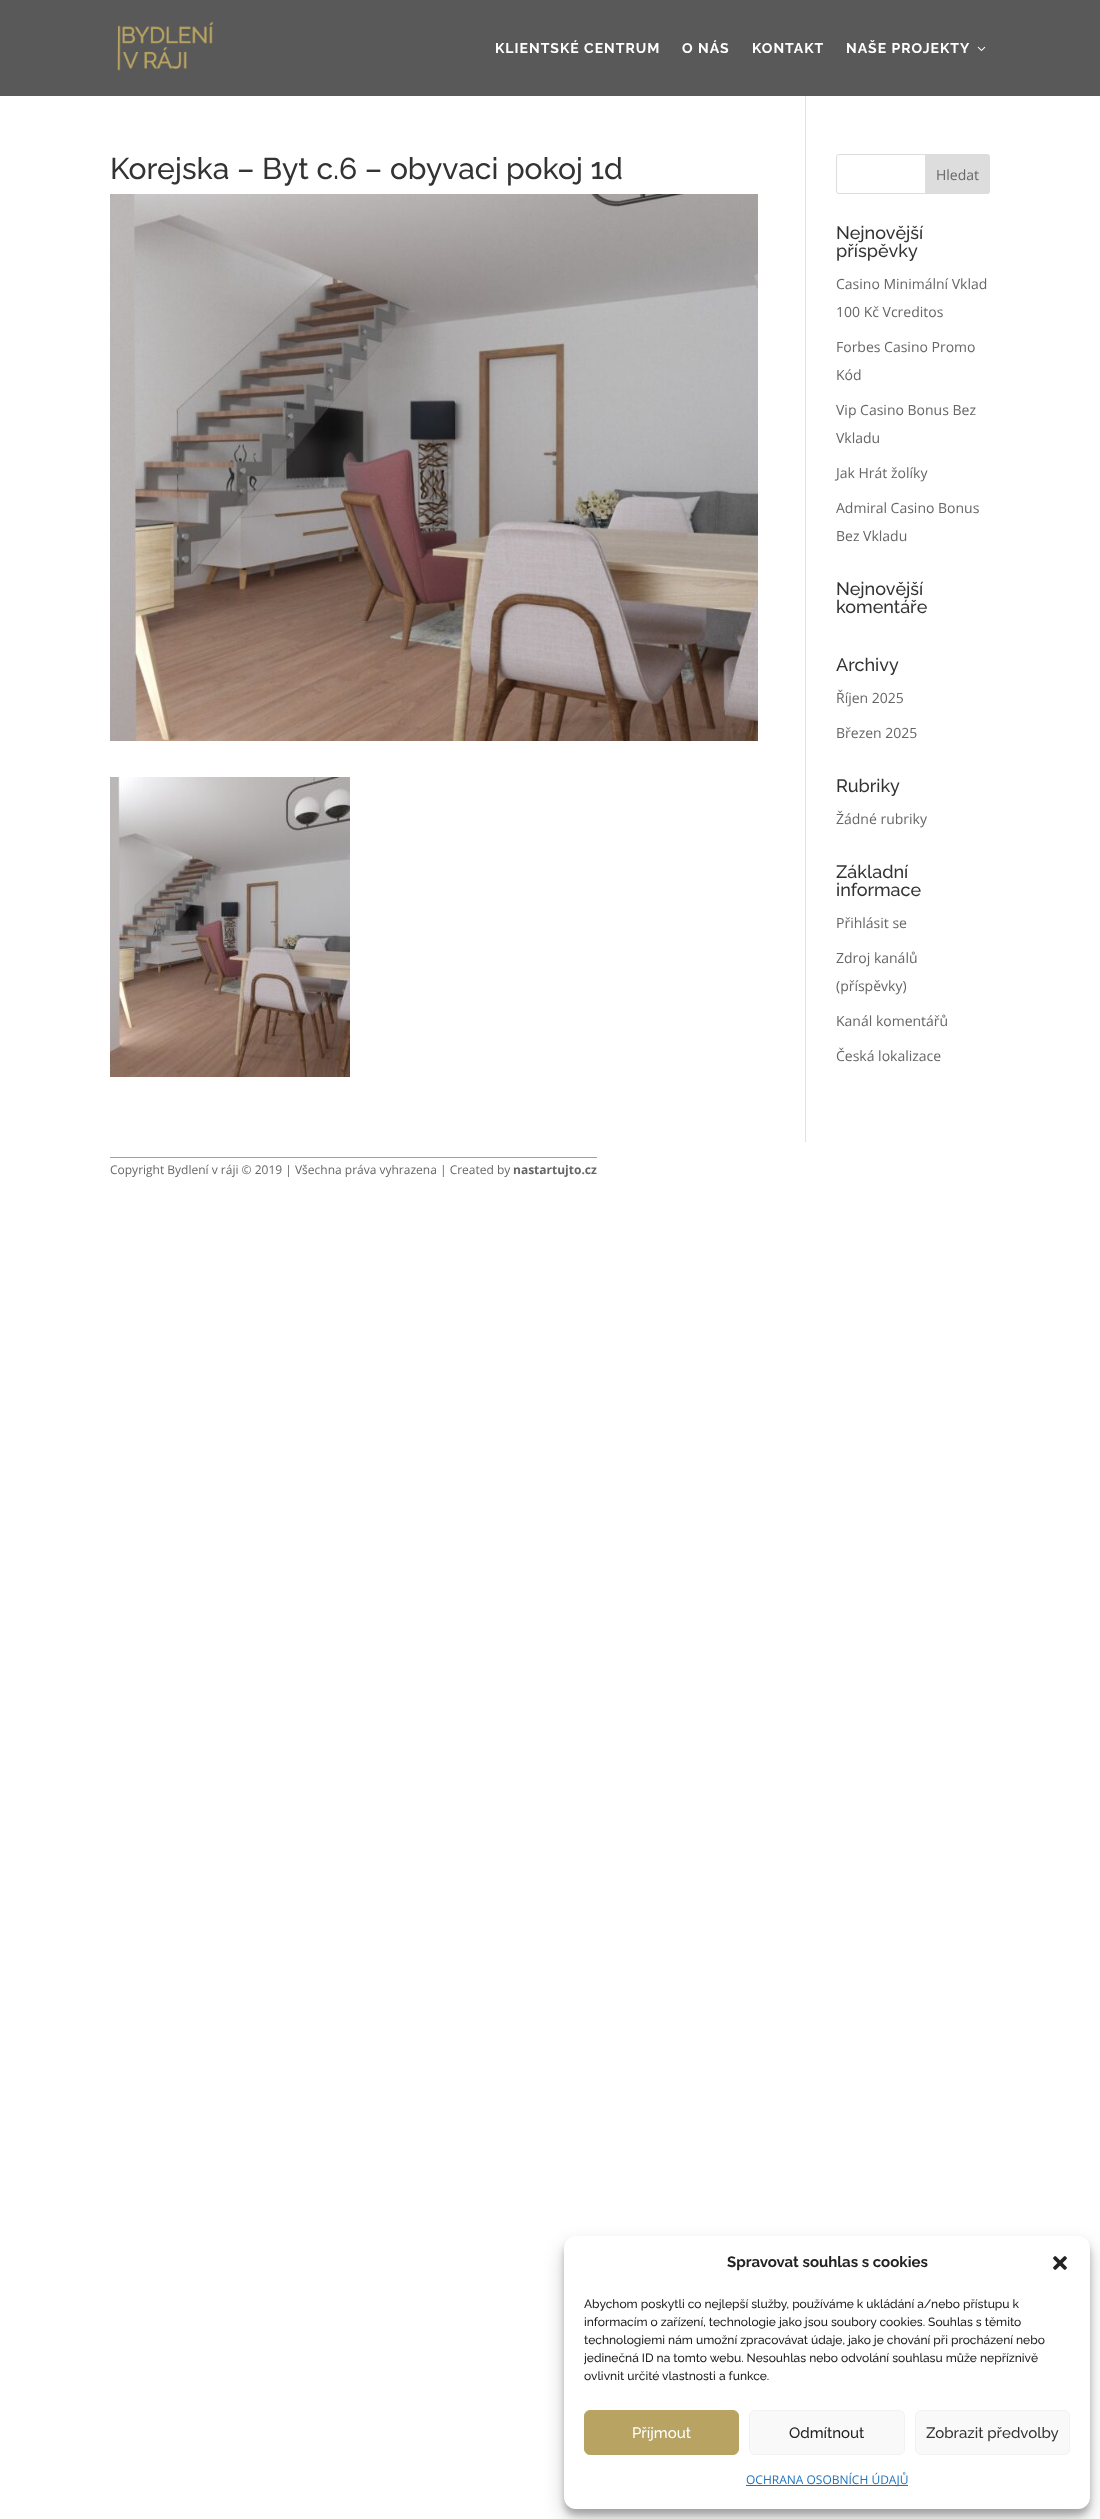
<!DOCTYPE html>
<meta charset="utf-8">
<style>body { margin: 0 } canvas { display: block }</style>
<canvas id="canvas" width="1100" height="2519"></canvas>
<script type="module">
  const canvas = document.getElementById("canvas");
  const g = canvas.getContext("2d");
  g.miterLimit = 4;
  g.fontKerning = "normal";
  function drawText(s, x, y, [font, color]) {
    g.font = font;
    g.fillStyle = color;
    g.fillText(s, x, y);
  }
  function fillBox(x, y, w, h, color) {
    g.fillStyle = color;
    g.fillRect(x, y, w, h);
  }
  function fillRounded(x, y, w, h, r, color) {
    g.fillStyle = color;
    g.beginPath();
    g.roundRect(x, y, w, h, r);
    g.fill();
  }
  async function drawPicture(src, x, y, w, h) {
    const img = new Image();
    img.src = src;
    await img.decode();
    g.drawImage(img, x, y, w, h);
  }

  const s1 = ["bold 14px Raleway", "#FFFFFF"];
  const s2 = ["500 30px Raleway", "#333333"];
  const s3 = ["14px Open Sans", "#666666"];
  const s4 = ["500 18px Raleway", "#333333"];
  const s5 = ["12px Open Sans", "#666666"];
  const s6 = ["bold 12px Open Sans", "#666666"];
  const s7 = ["bold 15px Raleway", "#222222"];
  const s8 = ["500 12px Raleway", "#222222"];
  const s9 = ["500 15px Raleway", "#FFFFFF"];
  const s10 = ["500 15px Raleway", "#222222"];
  const s11 = ["500 15px Raleway", "#333333"];
  const s12 = ["12px Open Sans", "#1E73BE"];

  fillBox(0, 0, 1100, 2519, "#FFFFFF");
  fillBox(0, 0, 1100, 96, "#595959");
  await drawPicture("pic1.png", 117, 21, 97, 50);
  g.letterSpacing = "1px";
  drawText("KLIENTSKÉ CENTRUM", 495, 53, s1);
  drawText("O NÁS", 682, 53, s1);
  drawText("KONTAKT", 752, 53, s1);
  drawText("NAŠE PROJEKTY", 846, 53, s1);
  await drawPicture("pic2.png", 977, 46, 9, 5);
  fillBox(805, 96, 1, 1046, "#E2E2E2");
  g.letterSpacing = "0px";
  drawText("Korejska – Byt c.6 – obyvaci pokoj 1d", 110, 179, s2);
  await drawPicture("pic3.png", 110, 194, 648, 547);
  await drawPicture("pic4.png", 110, 777, 240, 300);
  g.beginPath();
  g.roundRect(836.5, 154.5, 153, 39, 2.5);
  g.strokeStyle = "#DDDDDD";
  g.stroke();
  g.fillStyle = "#DDDDDD";
  g.beginPath();
  g.roundRect(925.5, 154.5, 64, 39, [0, 2.5, 2.5, 0]);
  g.fill();
  g.stroke();
  drawText("Hledat", 936, 180, s3);
  drawText("Nejnovější", 836, 239, s4);
  drawText("příspěvky", 836, 257, s4);
  drawText("Casino Minimální Vklad", 836, 289, s3);
  drawText("100 Kč Vcreditos", 836, 317, s3);
  drawText("Forbes Casino Promo", 836, 352, s3);
  drawText("Kód", 836, 380, s3);
  drawText("Vip Casino Bonus Bez", 836, 415, s3);
  drawText("Vkladu", 836, 443, s3);
  drawText("Jak Hrát žolíky", 836, 478, s3);
  drawText("Admiral Casino Bonus", 836, 513, s3);
  drawText("Bez Vkladu", 836, 541, s3);
  drawText("Nejnovější", 836, 595, s4);
  drawText("komentáře", 836, 613, s4);
  drawText("Archivy", 836, 671, s4);
  drawText("Říjen 2025", 836, 703, s3);
  drawText("Březen 2025", 836, 738, s3);
  drawText("Rubriky", 836, 792, s4);
  drawText("Žádné rubriky", 836, 824, s3);
  drawText("Základní", 836, 878, s4);
  drawText("informace", 836, 896, s4);
  drawText("Přihlásit se", 836, 928, s3);
  drawText("Zdroj kanálů", 836, 963, s3);
  drawText("(příspěvky)", 836, 991, s3);
  drawText("Kanál komentářů", 836, 1026, s3);
  drawText("Česká lokalizace", 836, 1061, s3);
  fillBox(110, 1157, 487, 1, "#A0A0A0");
  drawText("Copyright Bydlení v ráji © 2019 | Všechna práva vyhrazena | Created by", 110, 1174, s5);
  drawText("nastartujto.cz", 513, 1174, s6);
  g.fillStyle = "rgba(0, 0, 0, 0.23)";
  g.filter = "blur(3px)";
  g.beginPath();
  g.roundRect(564, 2242, 526, 273, 12);
  g.fill();
  g.filter = "none";
  g.fillStyle = "rgba(0, 0, 0, 0.19)";
  g.filter = "blur(10px)";
  g.beginPath();
  g.roundRect(564, 2246, 526, 273, 12);
  g.fill();
  g.filter = "none";
  fillRounded(564, 2236, 526, 273, 12, "#FFFFFF");
  drawText("Spravovat souhlas s cookies", 727, 2267, s7);
  await drawPicture("pic5.png", 1053, 2256, 14, 14);
  drawText("Abychom poskytli co nejlepší služby, používáme k ukládání a/nebo přístupu k", 584, 2308, s8);
  drawText("informacím o zařízení, technologie jako jsou soubory cookies. Souhlas s těmito", 584, 2326, s8);
  drawText("technologiemi nám umožní zpracovávat údaje, jako je chování při procházení nebo", 584, 2344, s8);
  g.save();
  g.beginPath();
  g.rect(584, 2295, 486, 95);
  g.clip();
  drawText("jedinečná ID na tomto webu. Nesouhlas nebo odvolání souhlasu může nepříznivě", 584, 2362, s8);
  g.restore();
  drawText("ovlivnit určité vlastnosti a funkce.", 584, 2380, s8);
  g.fillStyle = "#B8A362";
  g.beginPath();
  g.roundRect(584.5, 2410.5, 154, 44, 5.5);
  g.fill();
  g.strokeStyle = "#B8A362";
  g.stroke();
  drawText("Příjmout", 632, 2438, s9);
  g.fillStyle = "#F9F9F9";
  g.beginPath();
  g.roundRect(749.5, 2410.5, 155, 44, 5.5);
  g.fill();
  g.strokeStyle = "#F2F2F2";
  g.stroke();
  drawText("Odmítnout", 789, 2438, s10);
  g.fillStyle = "#F9F9F9";
  g.beginPath();
  g.roundRect(915.5, 2410.5, 154, 44, 5.5);
  g.fill();
  g.stroke();
  drawText("Zobrazit předvolby", 926, 2438, s11);
  fillBox(746, 2485, 162, 1, "#1E73BE");
  drawText("OCHRANA OSOBNÍCH ÚDAJŮ", 746, 2484, s12);
</script>
